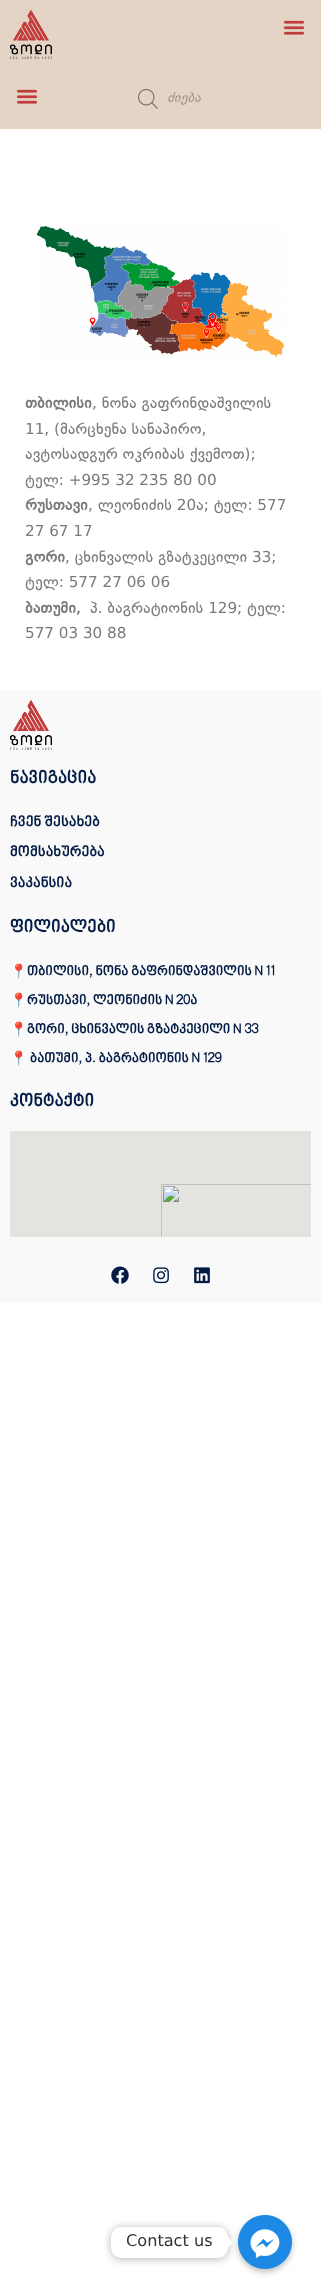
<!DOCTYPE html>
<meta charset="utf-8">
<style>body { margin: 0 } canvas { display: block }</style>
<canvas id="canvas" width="321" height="2294"></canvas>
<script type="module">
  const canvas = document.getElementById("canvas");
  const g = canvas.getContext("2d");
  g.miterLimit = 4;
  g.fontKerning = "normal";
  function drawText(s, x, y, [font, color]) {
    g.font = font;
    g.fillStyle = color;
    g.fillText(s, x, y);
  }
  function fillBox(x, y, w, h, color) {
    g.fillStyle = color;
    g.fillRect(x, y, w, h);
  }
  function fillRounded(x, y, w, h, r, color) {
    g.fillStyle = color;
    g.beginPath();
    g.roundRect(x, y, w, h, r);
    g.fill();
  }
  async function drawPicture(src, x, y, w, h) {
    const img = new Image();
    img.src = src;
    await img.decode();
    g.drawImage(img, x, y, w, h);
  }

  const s1 = ["italic 14px DejaVu Sans", "#A2958B"];
  const s2 = ["bold 16px DejaVu Sans", "#7A7A7A"];
  const s3 = ["16px DejaVu Sans", "#7A7A7A"];
  const s4 = ["bold 18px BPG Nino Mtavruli", "#021B45"];
  const s5 = ["bold 15px BPG Nino Mtavruli", "#021B45"];
  const s6 = ["14px Noto Color Emoji", "#021B45"];
  const s7 = ["bold 14px 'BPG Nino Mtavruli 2'", "#021B45"];
  const s8 = ["17px DejaVu Sans", "#333333"];

  fillBox(0, 0, 321, 2294, "#FFFFFF");
  fillBox(0, 0, 321, 129, "#E3D4C6");
  await drawPicture("pic1.png", 10, 10, 42, 49);
  await drawPicture("pic2.png", 283, 20, 22, 15);
  await drawPicture("pic2.png", 16, 89, 22, 15);
  await drawPicture("pic3.png", 138, 89, 20, 20);
  drawText("ძიება", 167, 102, s1);
  await drawPicture("pic4.png", 36, 226, 249, 131);
  drawText("თბილისი", 25, 408, s2);
  drawText(", ნონა გაფრინდაშვილის", 92, 408, s3);
  drawText("11, (მარცხენა სანაპირო,", 25, 434, s3);
  drawText("ავტოსადგურ ოკრიბას ქვემოთ);", 25, 459, s3);
  drawText("ტელ: +995 32 235 80 00", 25, 485, s3);
  drawText("რუსთავი", 25, 510, s2);
  drawText(", ლეონიძის 20ა; ტელ: 577", 88, 510, s3);
  drawText("27 67 17", 25, 536, s3);
  drawText("გორი", 25, 562, s2);
  drawText(", ცხინვალის გზატკეცილი 33;", 65, 562, s3);
  drawText("ტელ: 577 27 06 06", 25, 587, s3);
  drawText("ბათუმი,", 25, 613, s2);
  drawText("პ. ბაგრატიონის 129; ტელ:", 90, 613, s3);
  drawText("577 03 30 88", 25, 638, s3);
  fillBox(0, 690, 321, 613, "#F9F9F9");
  await drawPicture("pic5.png", 10, 700, 42, 50);
  drawText("ნავიგაცია", 10, 784, s4);
  drawText("ჩვენ შესახებ", 10, 827, s5);
  drawText("მომსახურება", 10, 857, s5);
  drawText("ვაკანსია", 10, 888, s5);
  drawText("ფილიალები", 10, 933, s4);
  drawText("📍", 10, 976, s6);
  drawText("თბილისი, ნონა გაფრინდაშვილის N 11", 27, 976, s7);
  drawText("📍", 10, 1005, s6);
  drawText("რუსთავი, ლეონიძის N 20ა", 27, 1005, s7);
  drawText("📍", 10, 1034, s6);
  drawText("გორი, ცხინვალის გზატკეცილი N 33", 27, 1034, s7);
  drawText("📍", 10, 1063, s6);
  drawText("ბათუმი, პ. ბაგრატიონის N 129", 30, 1063, s7);
  drawText("კონტაქტი", 10, 1107, s4);
  await drawPicture("pic6.png", 10, 1131, 301, 106);
  await drawPicture("pic7.png", 111, 1266, 18, 18);
  await drawPicture("pic8.png", 153, 1267, 16, 17);
  await drawPicture("pic9.png", 194, 1267, 16, 17);
  g.fillStyle = "rgba(0, 0, 0, 0.25)";
  g.filter = "blur(3px)";
  g.beginPath();
  g.roundRect(238, 2218, 54, 54, 27);
  g.fill();
  g.filter = "none";
  await drawPicture("pic10.png", 238, 2215, 54, 54);
  g.fillStyle = "rgba(0, 0, 0, 0.15)";
  g.filter = "blur(4px)";
  g.beginPath();
  g.roundRect(111, 2228, 117, 31, 10);
  g.fill();
  g.filter = "none";
  g.filter = "blur(4px)";
  g.beginPath();
  g.roundRect(111, 2228, 117, 31, 10);
  g.fill();
  g.filter = "none";
  fillRounded(111, 2227, 117, 31, 10, "#FFFFFF");
  drawText("Contact us", 126, 2246, s8);
  g.fillStyle = "#FFFFFF";
  g.beginPath();
  g.moveTo(228, 2247.5);
  g.lineTo(228, 2237.5);
  g.lineTo(233, 2242.5);
  g.closePath();
  g.fill();
</script>
